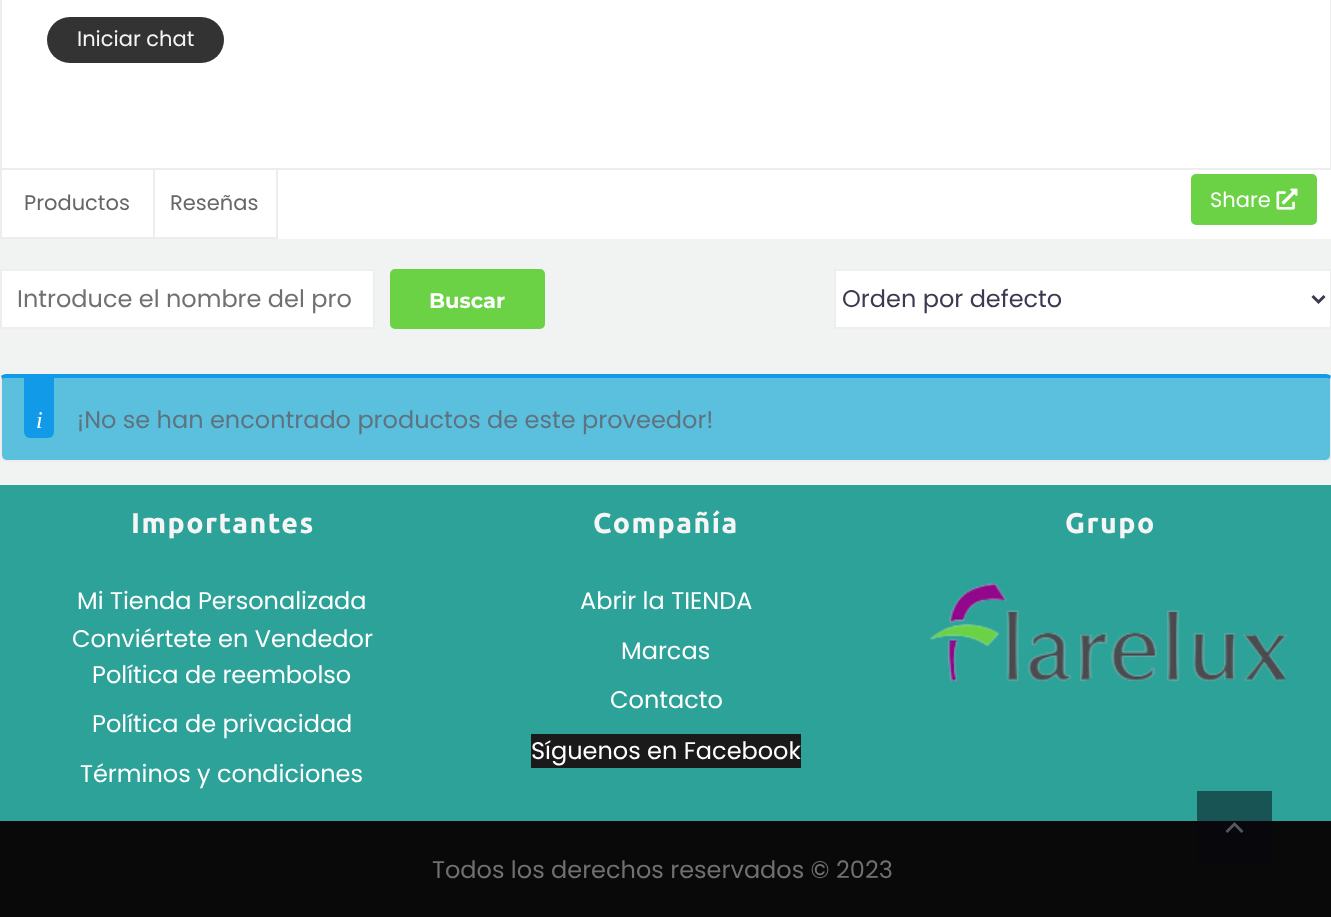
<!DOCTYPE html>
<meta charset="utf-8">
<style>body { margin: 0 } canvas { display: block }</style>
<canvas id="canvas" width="1331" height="917"></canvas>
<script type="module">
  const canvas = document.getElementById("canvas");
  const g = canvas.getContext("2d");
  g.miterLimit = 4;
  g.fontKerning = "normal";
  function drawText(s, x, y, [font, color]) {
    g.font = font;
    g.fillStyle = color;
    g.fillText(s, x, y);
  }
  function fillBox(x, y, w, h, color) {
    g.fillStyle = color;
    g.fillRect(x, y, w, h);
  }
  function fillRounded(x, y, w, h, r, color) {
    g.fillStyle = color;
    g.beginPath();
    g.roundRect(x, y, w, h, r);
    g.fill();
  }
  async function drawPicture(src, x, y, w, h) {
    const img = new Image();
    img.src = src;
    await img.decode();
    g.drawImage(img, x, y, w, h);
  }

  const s1 = ["21px Poppins", "#F5F5F5"];
  const s2 = ["21px Poppins", "#666666"];
  const s3 = ["21px Poppins", "#FFFFFF"];
  const s4 = ["24px Poppins", "#707070"];
  const s5 = ["bold 21px Montserrat", "#FFFFFF"];
  const s6 = ["24px Poppins", "#3C3950"];
  const s7 = ["italic 24px Liberation Serif", "#FFFFFF"];
  const s8 = ["24px Poppins", "#5F727F"];
  const s9 = ["bold 28.5px Ubuntu", "#F5F5F5"];
  const s10 = ["24px Poppins", "#FFFFFF"];

  fillBox(0, 0, 1331, 917, "#F0F3F2");
  g.fillStyle = "#FFFFFF";
  g.beginPath();
  g.rect(1, -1, 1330, 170);
  g.fill();
  g.strokeStyle = "#EDEDED";
  g.lineWidth = 2;
  g.stroke();
  fillRounded(47, 17, 177, 46, 23, "#333333");
  drawText("Iniciar chat", 77, 46, s1);
  fillBox(2, 170, 1329, 69, "#FFFFFF");
  fillBox(276, 170, 2, 69, "#EDEDED");
  fillBox(0, 237, 278, 2, "#EDEDED");
  fillBox(0, 170, 2, 69, "#EDEDED");
  fillBox(153, 170, 2, 67, "#EDEDED");
  drawText("Productos", 24, 210, s2);
  drawText("Reseñas", 170, 210, s2);
  g.fillStyle = "#6BD245";
  g.beginPath();
  g.roundRect(1192, 175, 124, 49, 4);
  g.fill();
  g.strokeStyle = "#6BD245";
  g.stroke();
  drawText("Share", 1210, 207, s3);
  await drawPicture("pic1.png", 1276, 188, 22, 22);
  g.beginPath();
  g.rect(1, 270, 373, 58);
  g.fill();
  g.strokeStyle = "#EEEEEE";
  g.stroke();
  drawText("Introduce el nombre del pro", 17, 307, s4);
  g.fillStyle = "#6BD245";
  g.beginPath();
  g.roundRect(391, 270, 153, 58, 4);
  g.fill();
  g.strokeStyle = "#6BD245";
  g.stroke();
  drawText("Buscar", 429, 308, s5);
  g.beginPath();
  g.rect(835, 270, 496, 58);
  g.fill();
  g.strokeStyle = "#EEEEEE";
  g.stroke();
  g.beginPath();
  g.moveTo(1312.5, 296);
  g.lineTo(1318.5, 302);
  g.lineTo(1324.5, 296);
  g.strokeStyle = "#3C3950";
  g.lineWidth = 3;
  g.stroke();
  drawText("Orden por defecto", 842, 307, s6);
  g.fillStyle = "#5BC0DE";
  g.beginPath();
  g.moveTo(6, 378);
  g.lineTo(1326, 378);
  g.bezierCurveTo(1328, 378, 1330, 379, 1330, 380);
  g.lineTo(1330, 456);
  g.bezierCurveTo(1330, 458, 1328, 460, 1326, 460);
  g.lineTo(6, 460);
  g.bezierCurveTo(4, 460, 2, 458, 2, 456);
  g.lineTo(2, 380);
  g.bezierCurveTo(2, 379, 4, 378, 6, 378);
  g.closePath();
  g.fill();
  g.fillStyle = "#109AE7";
  g.beginPath();
  g.moveTo(6, 374);
  g.bezierCurveTo(4, 374, 2, 375, 1, 376);
  g.lineTo(2, 380);
  g.bezierCurveTo(2, 379, 4, 378, 6, 378);
  g.lineTo(1326, 378);
  g.bezierCurveTo(1328, 378, 1330, 379, 1330, 380);
  g.lineTo(1331, 376);
  g.bezierCurveTo(1330, 375, 1328, 374, 1326, 374);
  g.closePath();
  g.fill();
  g.fillStyle = "#EDEDED";
  g.beginPath();
  g.moveTo(1331, 376);
  g.bezierCurveTo(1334, 380, 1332, 392, 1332, 393);
  g.lineTo(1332, 457);
  g.lineTo(1330, 460);
  g.lineTo(1329, 459);
  g.lineTo(1330, 456);
  g.lineTo(1330, 380);
  g.closePath();
  g.fill();
  g.beginPath();
  g.moveTo(6, 462);
  g.lineTo(1326, 462);
  g.bezierCurveTo(1328, 462, 1329, 461, 1330, 460);
  g.lineTo(1329, 459);
  g.lineTo(1326, 460);
  g.lineTo(6, 460);
  g.lineTo(3, 459);
  g.lineTo(2, 460);
  g.bezierCurveTo(3, 461, 4, 462, 6, 462);
  g.closePath();
  g.fill();
  g.beginPath();
  g.moveTo(0, 380);
  g.lineTo(0, 457);
  g.lineTo(2, 460);
  g.lineTo(3, 459);
  g.lineTo(2, 456);
  g.lineTo(2, 380);
  g.lineTo(1, 376);
  g.closePath();
  g.fill();
  g.fillStyle = "#109AE7";
  g.beginPath();
  g.roundRect(24, 378, 30, 60, [0, 0, 6, 6]);
  g.fill();
  drawText("i", 36, 428, s7);
  drawText("¡No se han encontrado productos de este proveedor!", 77, 428, s8);
  fillBox(0, 485, 1331, 336, "#2CA299");
  fillBox(1197, 791, 75, 30, "#195454");
  g.letterSpacing = "1.5px";
  drawText("Importantes", 131, 533, s9);
  g.letterSpacing = "0px";
  drawText("Mi Tienda Personalizada", 77, 609, s10);
  drawText("Conviértete en Vendedor", 72, 647, s10);
  drawText("Política de reembolso", 92, 683, s10);
  drawText("Política de privacidad", 92, 732, s10);
  drawText("Términos y condiciones", 80, 782, s10);
  g.letterSpacing = "1.5px";
  drawText("Compañía", 593, 533, s9);
  g.letterSpacing = "0px";
  drawText("Abrir la TIENDA", 580, 609, s10);
  drawText("Marcas", 621, 659, s10);
  drawText("Contacto", 610, 708, s10);
  fillBox(531, 734, 270, 34, "#1A1A1A");
  drawText("Síguenos en Facebook", 531, 759, s10);
  g.letterSpacing = "1.5px";
  drawText("Grupo", 1065, 533, s9);
  await drawPicture("pic2.png", 930, 583, 358, 99);
  fillBox(0, 821, 1331, 96, "#090909");
  fillBox(1197, 821, 75, 45, "#08080C");
  g.letterSpacing = "0px";
  drawText("Todos los derechos reservados © 2023", 432, 878, s4);
  g.fillStyle = "#51595F";
  g.beginPath();
  g.moveTo(1227.5, 833);
  g.lineTo(1234.5, 826);
  g.lineTo(1241.5, 833);
  g.lineTo(1243.5, 831);
  g.lineTo(1234.5, 822);
  g.lineTo(1225.5, 831);
  g.closePath();
  g.fill();
</script>
